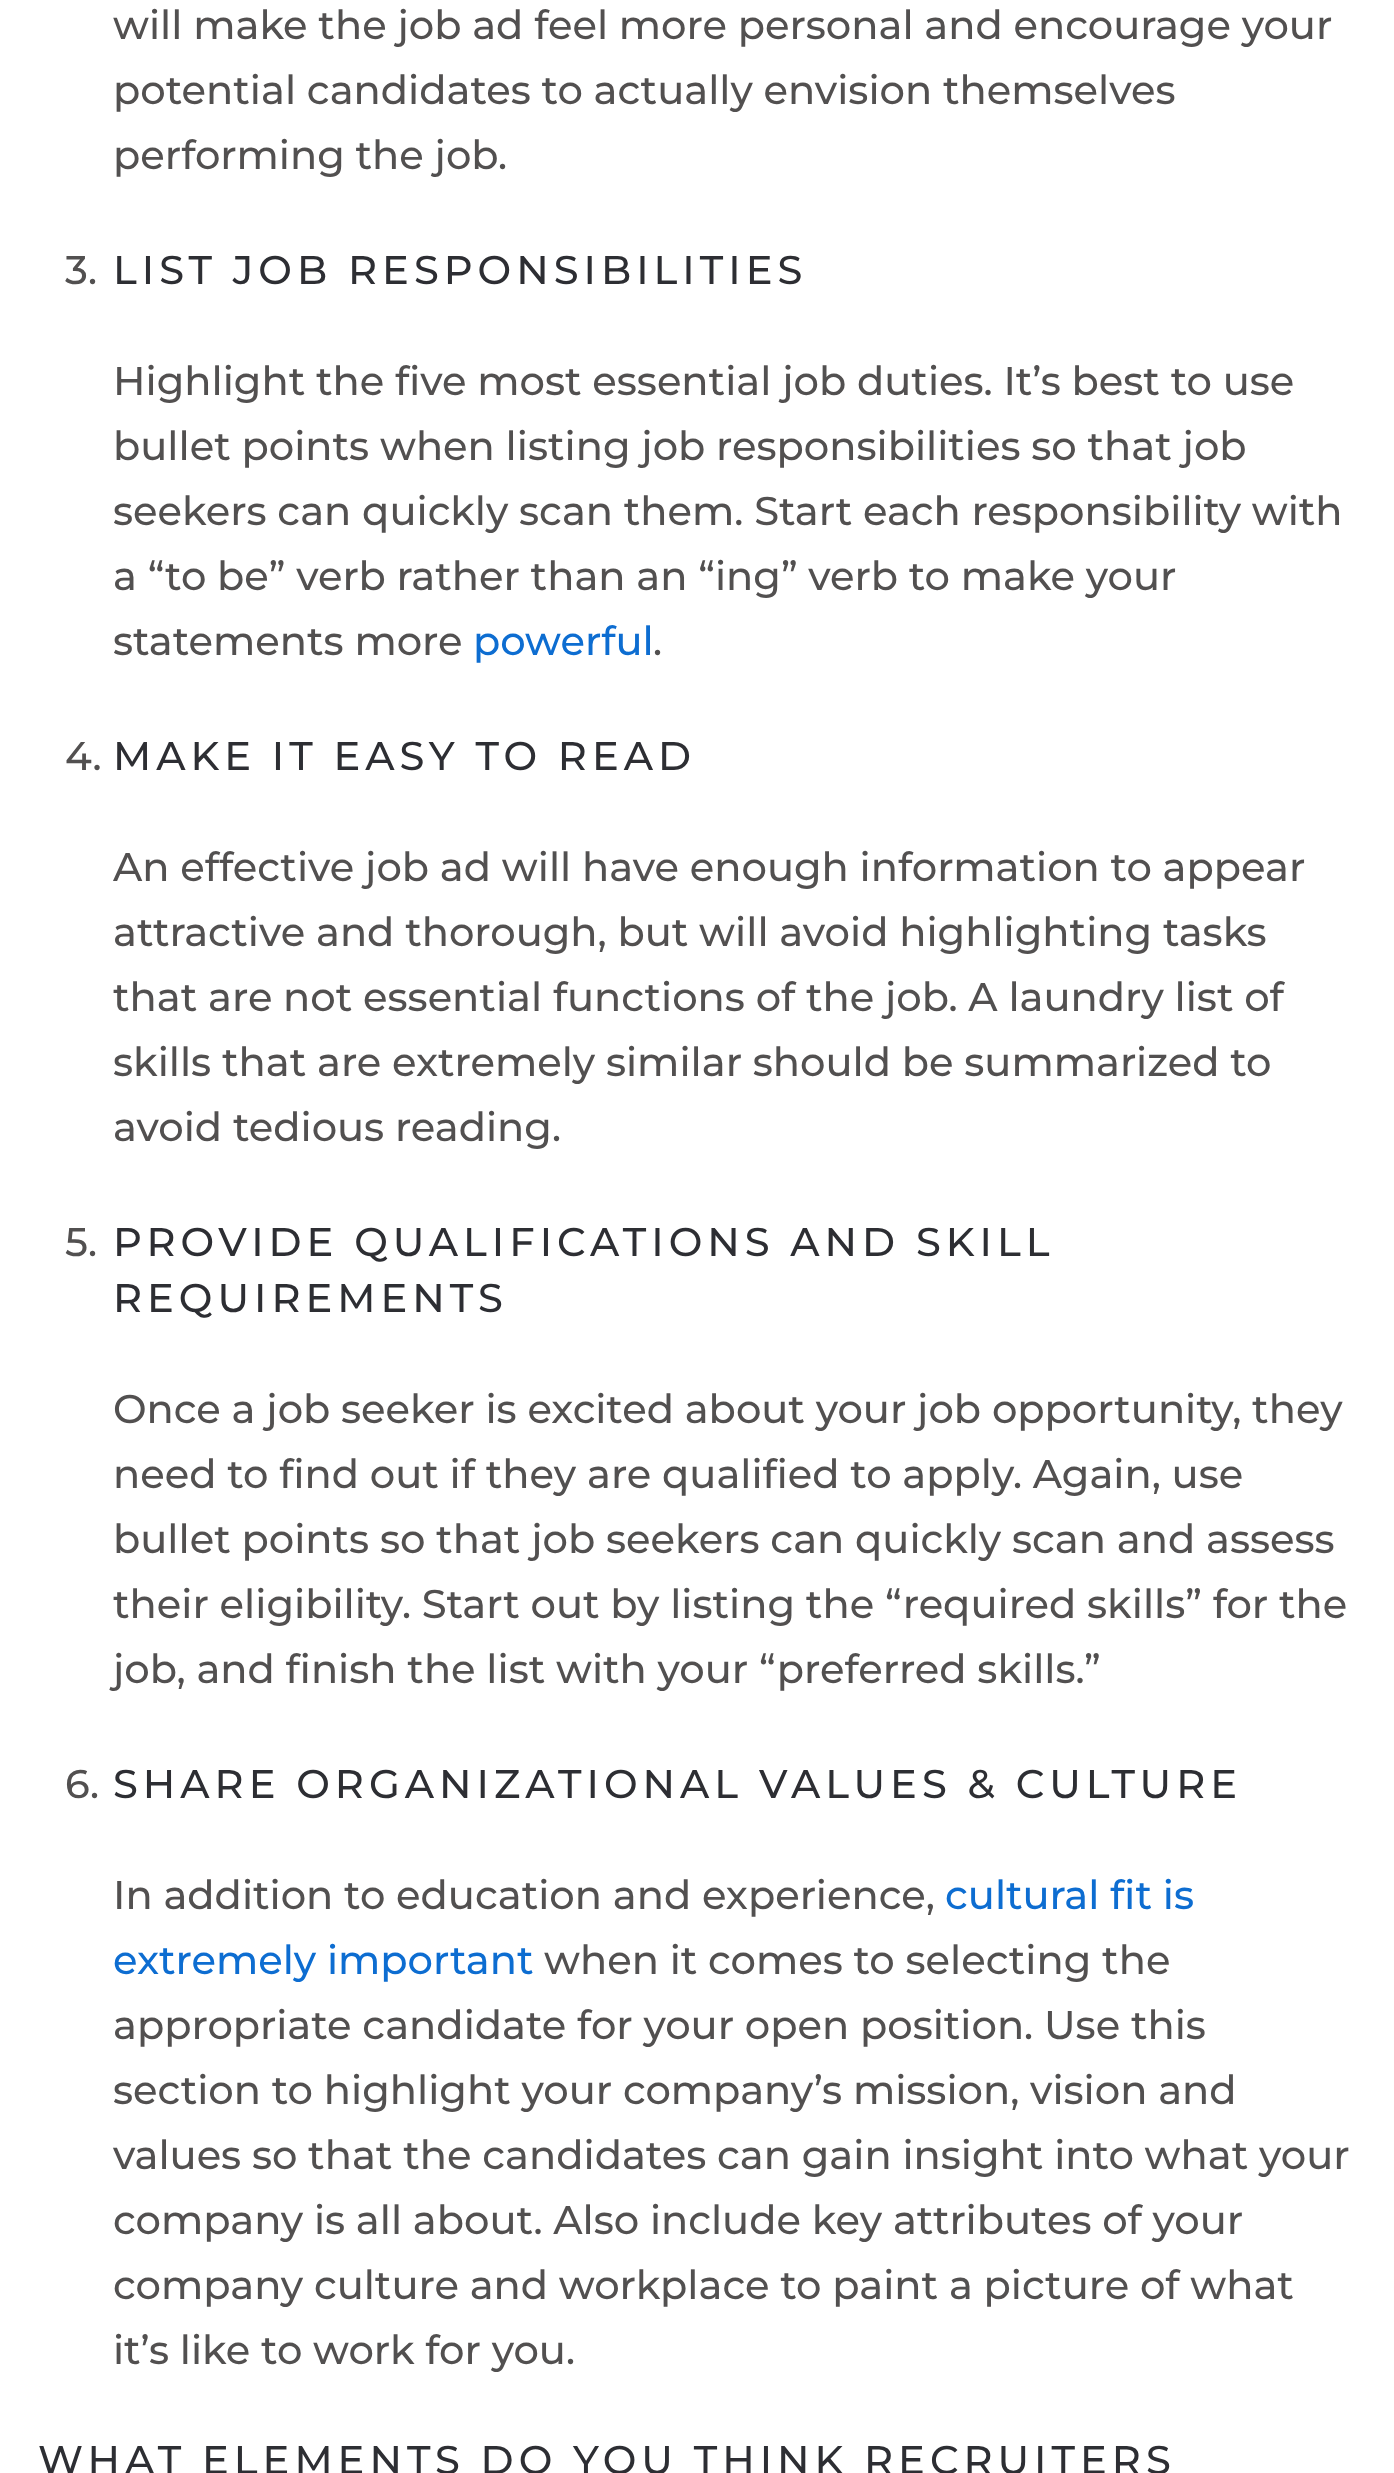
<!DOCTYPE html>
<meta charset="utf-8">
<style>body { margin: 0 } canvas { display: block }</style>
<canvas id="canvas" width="1394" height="2473"></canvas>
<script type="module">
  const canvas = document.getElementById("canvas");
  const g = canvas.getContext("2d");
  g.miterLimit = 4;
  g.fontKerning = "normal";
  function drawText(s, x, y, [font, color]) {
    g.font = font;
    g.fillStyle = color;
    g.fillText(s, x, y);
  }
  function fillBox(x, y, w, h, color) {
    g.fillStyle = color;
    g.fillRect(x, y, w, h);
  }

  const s1 = ["100 40px Montserrat", "#525050"];
  const s2 = ["100 40px Montserrat", "#2D2E33"];
  const s3 = ["100 40px Montserrat", "#0D6DD1"];

  fillBox(0, 0, 1394, 2473, "#FFFFFF");
  drawText("will make the job ad feel more personal and encourage your", 113, 39, s1);
  drawText("potential candidates to actually envision themselves", 113, 104, s1);
  drawText("performing the job.", 113, 169, s1);
  drawText("3.", 65, 284, s1);
  g.letterSpacing = "5px";
  drawText("LIST JOB RESPONSIBILITIES", 113, 284, s2);
  g.letterSpacing = "0px";
  drawText("Highlight the five most essential job duties. It’s best to use", 113, 395, s1);
  drawText("bullet points when listing job responsibilities so that job", 113, 460, s1);
  drawText("seekers can quickly scan them. Start each responsibility with", 113, 525, s1);
  drawText("a “to be” verb rather than an “ing” verb to make your", 113, 590, s1);
  drawText("statements more", 113, 655, s1);
  drawText("powerful", 473, 655, s3);
  drawText(".", 653, 655, s1);
  drawText("4.", 65, 770, s1);
  g.letterSpacing = "5px";
  drawText("MAKE IT EASY TO READ", 113, 770, s2);
  g.letterSpacing = "0px";
  drawText("An effective job ad will have enough information to appear", 113, 881, s1);
  drawText("attractive and thorough, but will avoid highlighting tasks", 113, 946, s1);
  drawText("that are not essential functions of the job. A laundry list of", 113, 1011, s1);
  drawText("skills that are extremely similar should be summarized to", 113, 1076, s1);
  drawText("avoid tedious reading.", 113, 1141, s1);
  drawText("5.", 65, 1256, s1);
  g.letterSpacing = "5px";
  drawText("PROVIDE QUALIFICATIONS AND SKILL", 113, 1256, s2);
  drawText("REQUIREMENTS", 113, 1312, s2);
  g.letterSpacing = "0px";
  drawText("Once a job seeker is excited about your job opportunity, they", 113, 1423, s1);
  drawText("need to find out if they are qualified to apply. Again, use", 113, 1488, s1);
  drawText("bullet points so that job seekers can quickly scan and assess", 113, 1553, s1);
  drawText("their eligibility. Start out by listing the “required skills” for the", 113, 1618, s1);
  drawText("job, and finish the list with your “preferred skills.”", 113, 1683, s1);
  drawText("6.", 65, 1798, s1);
  g.letterSpacing = "5px";
  drawText("SHARE ORGANIZATIONAL VALUES & CULTURE", 113, 1798, s2);
  g.letterSpacing = "0px";
  drawText("In addition to education and experience,", 113, 1909, s1);
  drawText("cultural fit is", 945, 1909, s3);
  drawText("extremely important", 113, 1974, s3);
  drawText("when it comes to selecting the", 544, 1974, s1);
  drawText("appropriate candidate for your open position. Use this", 113, 2039, s1);
  drawText("section to highlight your company’s mission, vision and", 113, 2104, s1);
  drawText("values so that the candidates can gain insight into what your", 113, 2169, s1);
  drawText("company is all about. Also include key attributes of your", 113, 2234, s1);
  drawText("company culture and workplace to paint a picture of what", 113, 2299, s1);
  drawText("it’s like to work for you.", 113, 2364, s1);
  g.letterSpacing = "5px";
  drawText("WHAT ELEMENTS DO YOU THINK RECRUITERS", 38, 2474, s2);
</script>
